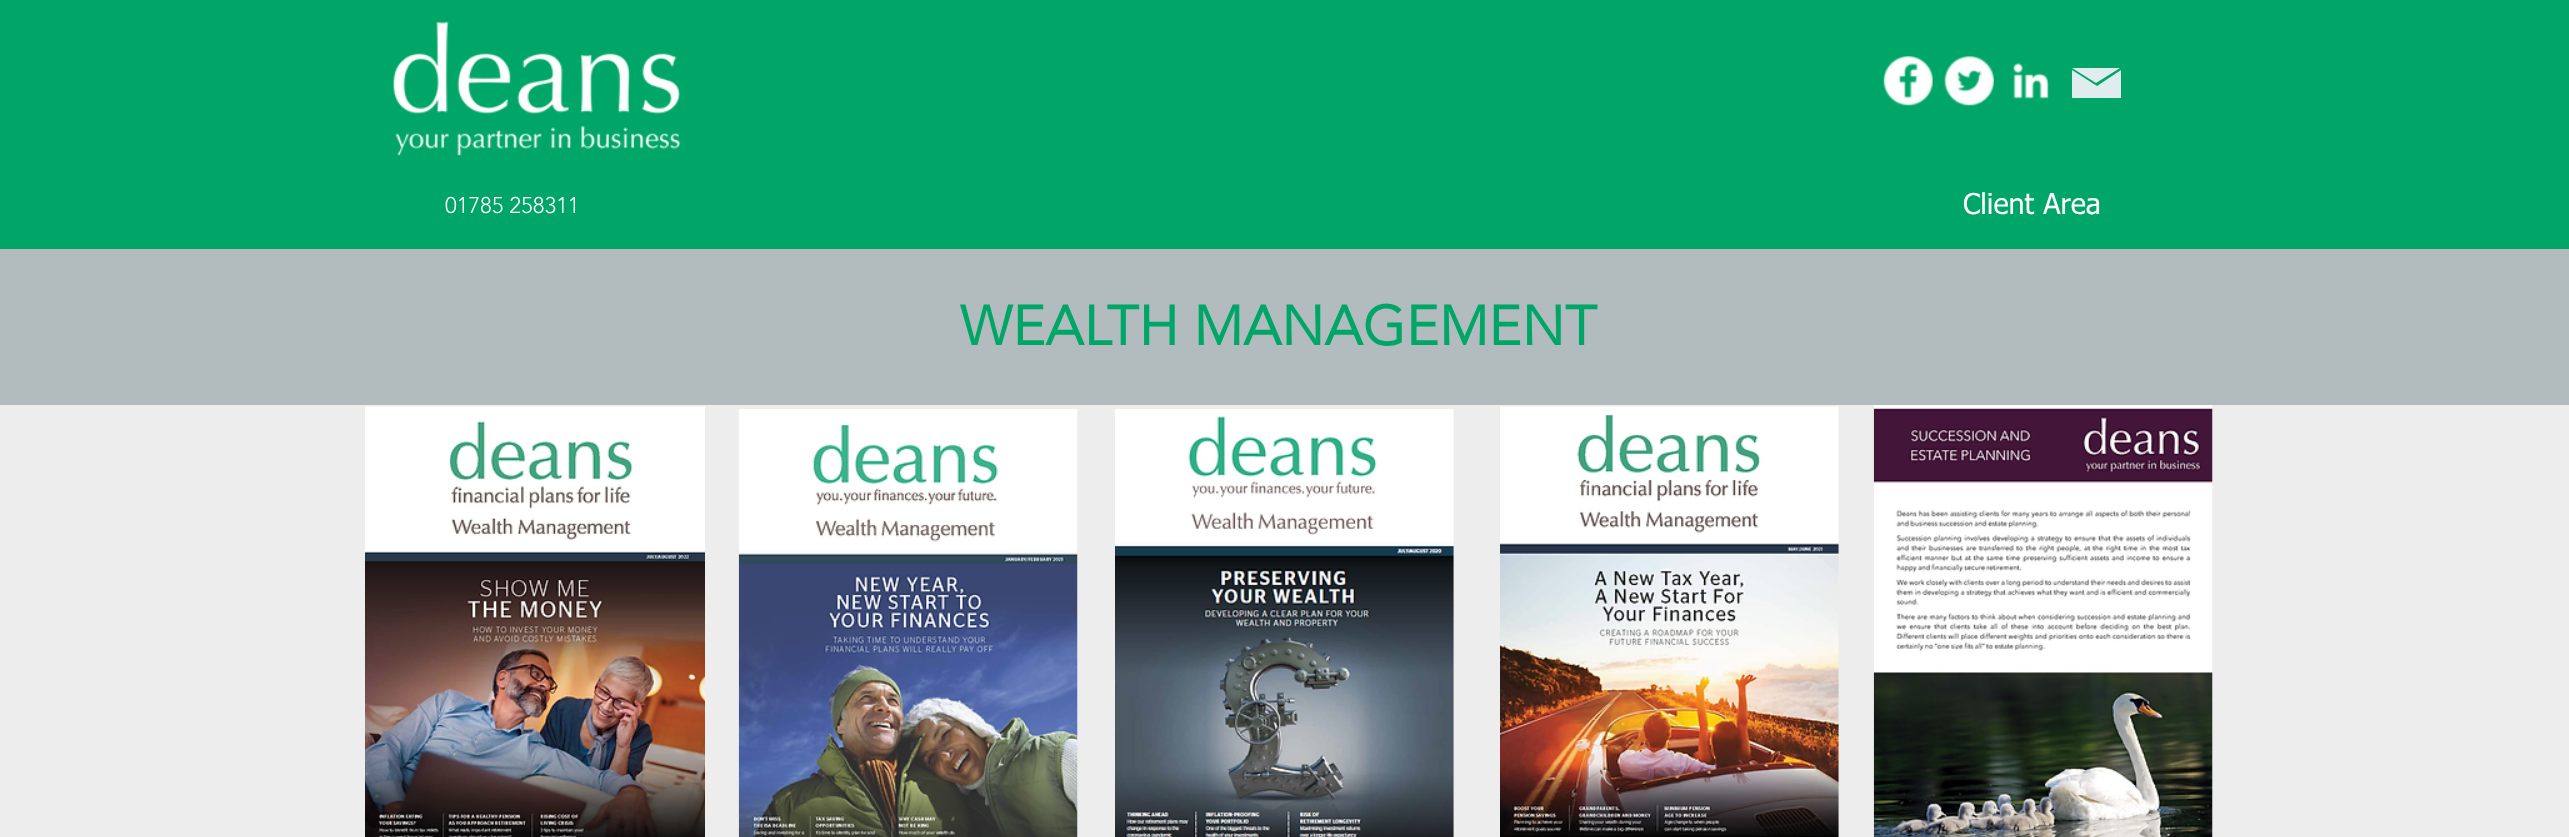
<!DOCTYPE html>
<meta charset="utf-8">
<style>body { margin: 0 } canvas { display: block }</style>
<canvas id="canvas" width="2569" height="837"></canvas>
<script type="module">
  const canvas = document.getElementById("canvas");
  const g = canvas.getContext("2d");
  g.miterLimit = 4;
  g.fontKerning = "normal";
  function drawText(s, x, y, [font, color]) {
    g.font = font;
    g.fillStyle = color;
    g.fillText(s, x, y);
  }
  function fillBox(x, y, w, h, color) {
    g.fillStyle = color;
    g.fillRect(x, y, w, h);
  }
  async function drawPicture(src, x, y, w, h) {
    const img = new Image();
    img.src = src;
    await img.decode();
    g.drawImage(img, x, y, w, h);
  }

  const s1 = ["300 22.5px 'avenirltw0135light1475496'", "#FFFFFF"];
  const s2 = ["28.75px tahoma", "#FFFFFF"];
  const s3 = ["bold 55px 'avenirltw0135light1475496'", "#00A668"];

  fillBox(0, 0, 2569, 837, "#B2BCBE");
  fillBox(0, 0, 2569, 249, "#00A668");
  await drawPicture("pic1.png", 392, 21, 289, 135);
  await drawPicture("pic2.png", 1883, 56, 50, 50);
  await drawPicture("pic3.png", 1944, 56, 50, 50);
  await drawPicture("pic4.png", 2013, 63, 36, 36);
  g.fillStyle = "#E1ECEE";
  g.beginPath();
  g.moveTo(2096, 83);
  g.lineTo(2072, 68);
  g.lineTo(2120, 68);
  g.closePath();
  g.moveTo(2121, 70);
  g.lineTo(2097, 86);
  g.lineTo(2072, 70);
  g.lineTo(2072, 98);
  g.lineTo(2121, 98);
  g.closePath();
  g.fill();
  drawText("01785 258311", 445, 213, s1);
  drawText("Client Area", 1963, 214, s2);
  g.letterSpacing = "0.5px";
  drawText("WEALTH MANAGEMENT", 960, 345, s3);
  fillBox(0, 405, 2569, 432, "#EDEDED");
  await drawPicture("pic5.png", 365, 406, 340, 431);
  await drawPicture("pic6.png", 738, 409, 340, 428);
  await drawPicture("pic7.png", 1115, 409, 339, 428);
  await drawPicture("pic8.png", 1500, 406, 339, 431);
  await drawPicture("pic9.png", 1873, 405, 340, 432);
</script>
